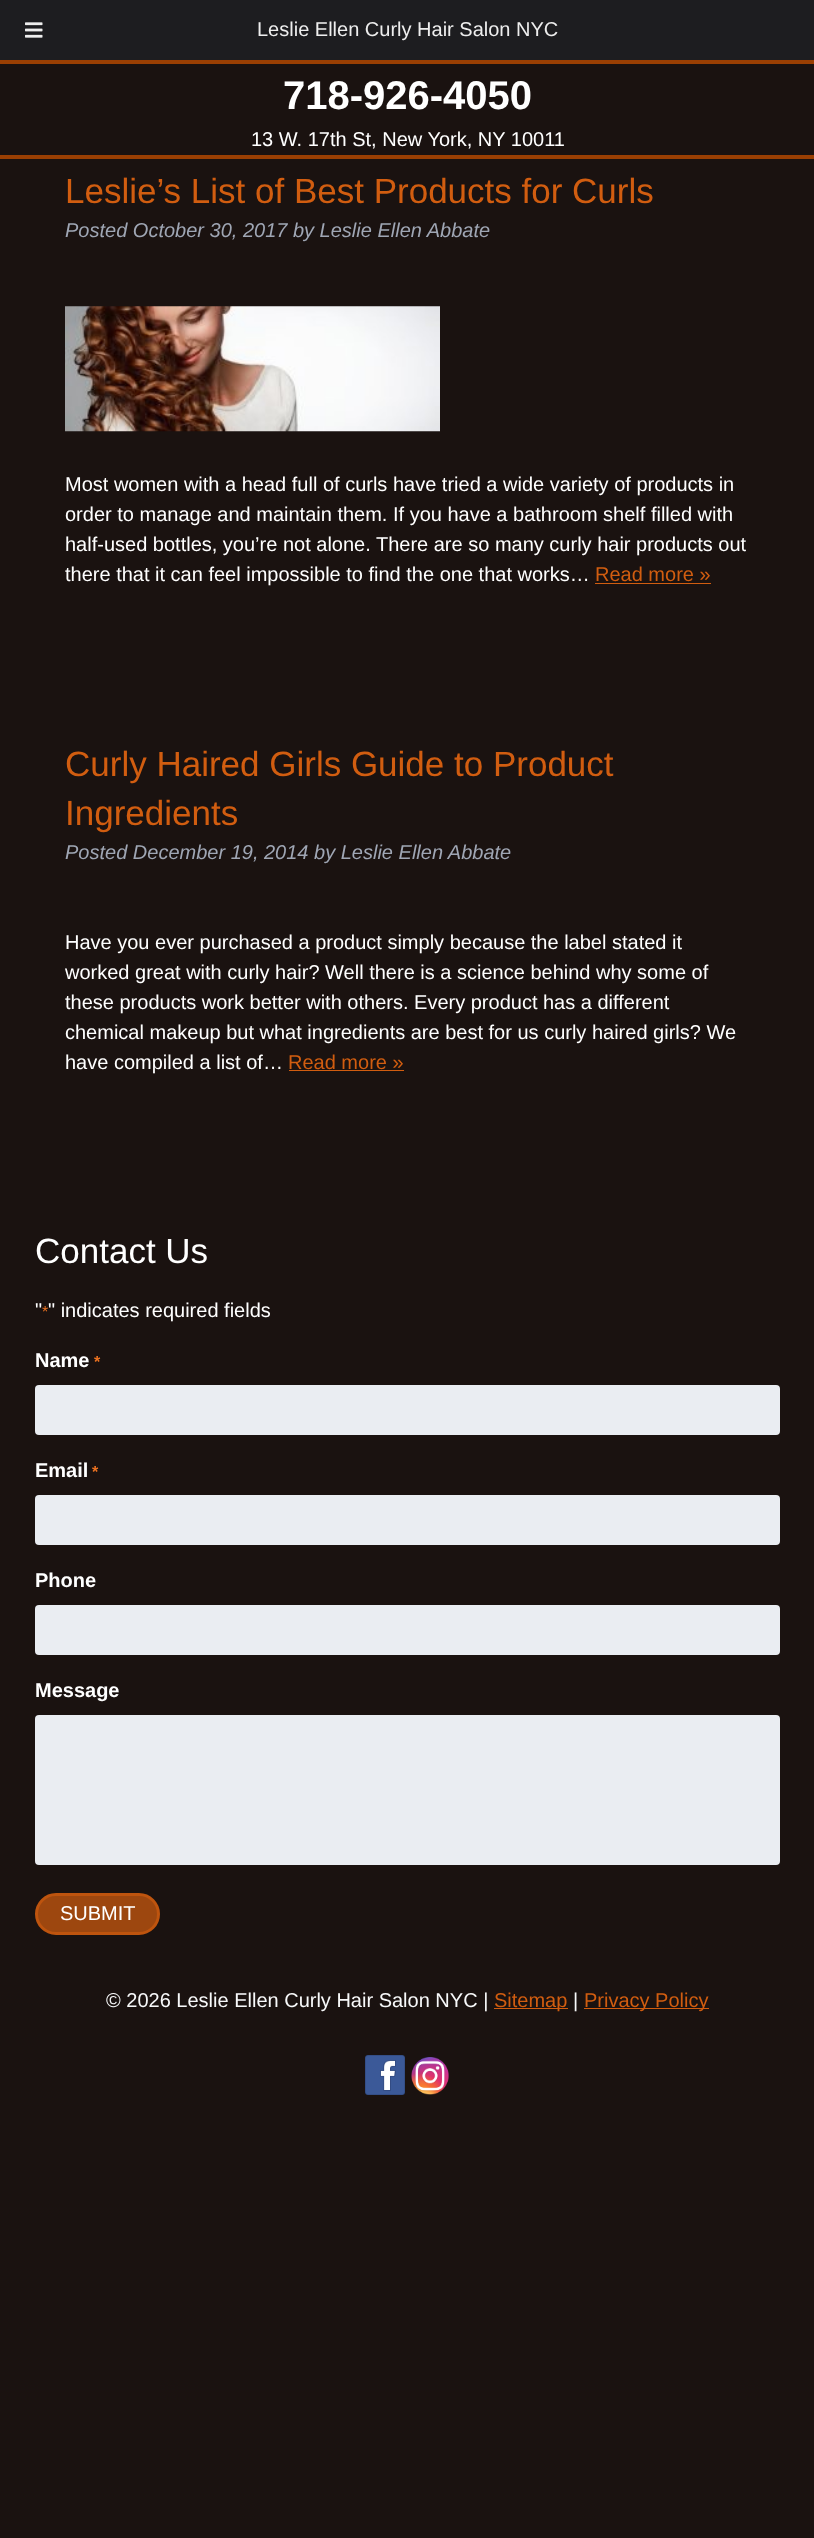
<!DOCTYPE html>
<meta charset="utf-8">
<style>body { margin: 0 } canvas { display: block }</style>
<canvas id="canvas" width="814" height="2538"></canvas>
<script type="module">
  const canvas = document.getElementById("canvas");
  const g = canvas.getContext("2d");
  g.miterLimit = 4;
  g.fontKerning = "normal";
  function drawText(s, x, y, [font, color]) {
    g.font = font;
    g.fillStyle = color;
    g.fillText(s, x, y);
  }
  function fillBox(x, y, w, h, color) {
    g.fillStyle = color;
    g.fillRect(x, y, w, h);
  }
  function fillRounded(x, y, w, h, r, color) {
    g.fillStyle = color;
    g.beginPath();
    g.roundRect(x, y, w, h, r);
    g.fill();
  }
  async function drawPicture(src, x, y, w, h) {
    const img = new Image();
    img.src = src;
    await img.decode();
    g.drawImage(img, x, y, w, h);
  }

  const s1 = ["20px Liberation Sans", "#EEEEEE"];
  const s2 = ["bold 40px Liberation Sans", "#FFFFFF"];
  const s3 = ["20px Liberation Sans", "#FFFFFF"];
  const s4 = ["35px Liberation Sans", "#D15D10"];
  const s5 = ["italic 20px Liberation Sans", "#9FA6B4"];
  const s6 = ["20px Liberation Sans", "#D15D10"];
  const s7 = ["35px Liberation Sans", "#FFFFFF"];
  const s8 = ["16px Liberation Sans", "#EE7321"];
  const s9 = ["bold 20px Liberation Sans", "#FFFFFF"];
  const s10 = ["bold 16px Liberation Sans", "#EE7321"];
  const s11 = ["20px Liberation Sans", "#F8F9FA"];

  fillBox(0, 0, 814, 2538, "#1A1210");
  fillBox(0, 0, 814, 60, "#1D1D20");
  await drawPicture("pic1.png", 25, 22, 18, 16);
  drawText("Leslie Ellen Curly Hair Salon NYC", 257, 36, s1);
  fillBox(0, 60, 814, 4, "#9A3F03");
  fillBox(0, 155, 814, 4, "#9A3F03");
  drawText("718-926-4050", 283, 109, s2);
  drawText("13 W. 17th St, New York, NY 10011", 251, 146, s3);
  drawText("Leslie’s List of Best Products for Curls", 65, 203, s4);
  drawText("Posted October 30, 2017 by Leslie Ellen Abbate", 65, 237, s5);
  await drawPicture("pic2.png", 65, 306, 375, 126);
  drawText("Most women with a head full of curls have tried a wide variety of products in", 65, 491, s3);
  drawText("order to manage and maintain them. If you have a bathroom shelf filled with", 65, 521, s3);
  drawText("half-used bottles, you’re not alone. There are so many curly hair products out", 65, 551, s3);
  drawText("there that it can feel impossible to find the one that works…", 65, 581, s3);
  drawText("Read more »", 595, 581, s6);
  fillBox(595, 583, 116, 1, "#D15D10");
  drawText("Curly Haired Girls Guide to Product", 65, 776, s4);
  drawText("Ingredients", 65, 825, s4);
  drawText("Posted December 19, 2014 by Leslie Ellen Abbate", 65, 859, s5);
  drawText("Have you ever purchased a product simply because the label stated it", 65, 949, s3);
  drawText("worked great with curly hair? Well there is a science behind why some of", 65, 979, s3);
  drawText("these products work better with others. Every product has a different", 65, 1009, s3);
  drawText("chemical makeup but what ingredients are best for us curly haired girls? We", 65, 1039, s3);
  drawText("have compiled a list of…", 65, 1069, s3);
  drawText("Read more »", 288, 1069, s6);
  fillBox(289, 1070, 115, 1, "#D15D10");
  drawText("Contact Us", 35, 1263, s7);
  drawText("\"", 35, 1317, s3);
  drawText("*", 42, 1317, s8);
  drawText("\" indicates required fields", 48, 1317, s3);
  drawText("Name", 35, 1367, s9);
  drawText("*", 94, 1367, s10);
  fillRounded(35, 1385, 745, 50, 4, "#EAEDF2");
  drawText("Email", 35, 1477, s9);
  drawText("*", 92, 1477, s10);
  fillRounded(35, 1495, 745, 50, 4, "#EAEDF2");
  drawText("Phone", 35, 1587, s9);
  fillRounded(35, 1605, 745, 50, 4, "#EAEDF2");
  drawText("Message", 35, 1697, s9);
  fillRounded(35, 1715, 745, 150, 4, "#EAEDF2");
  g.fillStyle = "#9D470F";
  g.beginPath();
  g.roundRect(36.5, 1894.5, 122, 39, 19.5);
  g.fill();
  g.strokeStyle = "#BE540E";
  g.lineWidth = 3;
  g.stroke();
  drawText("SUBMIT", 60, 1920, s3);
  drawText("© 2026 Leslie Ellen Curly Hair Salon NYC |", 106, 2007, s11);
  fillBox(494, 2008, 74, 1, "#D15D10");
  drawText("Sitemap", 494, 2007, s6);
  drawText("|", 573, 2007, s11);
  fillBox(584, 2008, 125, 1, "#D15D10");
  drawText("Privacy Policy", 584, 2007, s6);
  await drawPicture("pic3.png", 365, 2055, 40, 40);
  await drawPicture("pic4.png", 411, 2057, 38, 38);
</script>
